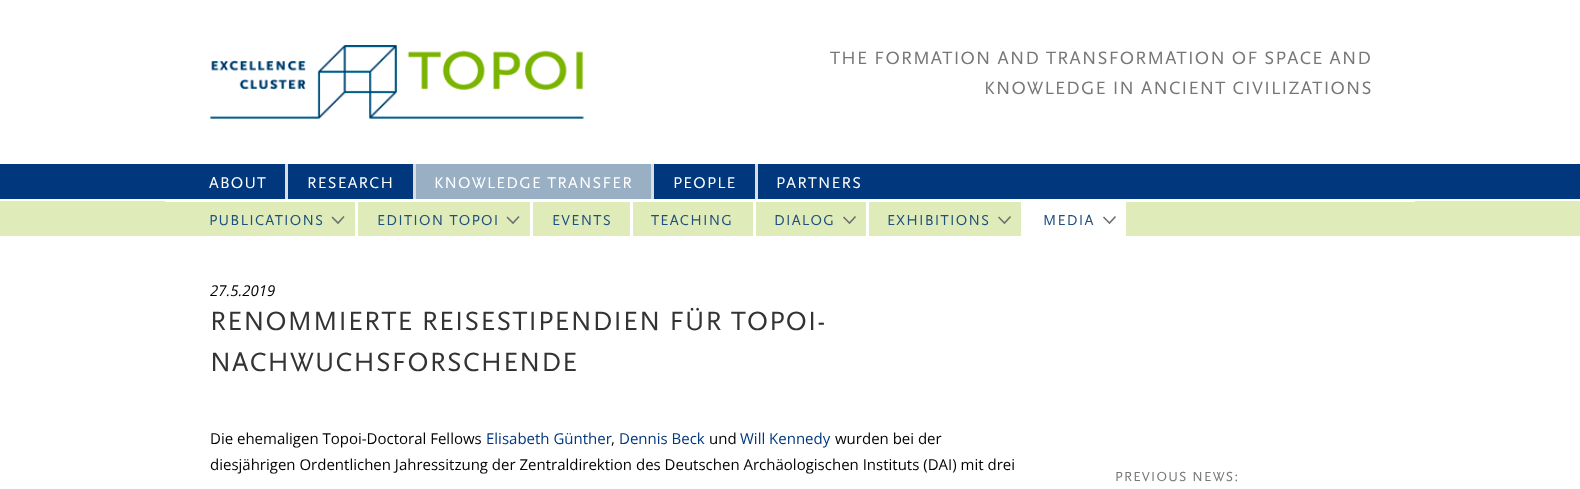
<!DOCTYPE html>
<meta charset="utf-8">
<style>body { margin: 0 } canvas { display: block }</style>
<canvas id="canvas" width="1580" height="489"></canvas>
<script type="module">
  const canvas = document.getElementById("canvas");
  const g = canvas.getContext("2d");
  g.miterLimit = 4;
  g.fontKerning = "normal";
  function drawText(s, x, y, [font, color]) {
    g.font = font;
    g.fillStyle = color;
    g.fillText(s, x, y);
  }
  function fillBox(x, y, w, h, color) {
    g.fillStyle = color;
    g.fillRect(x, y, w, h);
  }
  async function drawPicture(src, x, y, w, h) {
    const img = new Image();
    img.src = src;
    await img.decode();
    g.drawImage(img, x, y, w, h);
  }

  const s1 = ["18.75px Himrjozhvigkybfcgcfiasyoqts", "#777777"];
  const s2 = ["16.25px Himrjozhvigkybfcgcfiasyoqts", "#FFFFFF"];
  const s3 = ["15px Himrjozhvigkybfcgcfiasyoqts", "#1F4F7D"];
  const s4 = ["italic 15px Open Sans", "#000000"];
  const s5 = ["27.5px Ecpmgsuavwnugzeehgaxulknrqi", "#333333"];
  const s6 = ["15px Open Sans", "#000000"];
  const s7 = ["15px Open Sans", "#00377D"];
  const s8 = ["13.75px Ecpmgsuavwnugzeehgaxulknrqi", "#777777"];

  fillBox(0, 0, 1580, 489, "#FFFFFF");
  await drawPicture("pic1.png", 210, 45, 374, 74);
  g.letterSpacing = "1.25px";
  drawText("THE FORMATION AND TRANSFORMATION OF SPACE AND", 830, 64, s1);
  drawText("KNOWLEDGE IN ANCIENT CIVILIZATIONS", 984, 94, s1);
  fillBox(0, 164, 1580, 35, "#00377D");
  drawText("ABOUT", 209, 188, s2);
  fillBox(416, 164, 235, 35, "#99AFC4");
  fillBox(413, 164, 3, 35, "#DDDDDD");
  drawText("KNOWLEDGE TRANSFER", 434, 188, s2);
  fillBox(0, 201, 1580, 35, "#DFECB9");
  fillBox(165, 201, 1250, 1, "#FFFFFF");
  drawText("PUBLICATIONS", 209, 225, s3);
  g.beginPath();
  g.moveTo(332, 217);
  g.lineTo(338, 223);
  g.lineTo(344, 216.5);
  g.strokeStyle = "#706F6F";
  g.lineWidth = 1.6;
  g.stroke();
  fillBox(355, 201, 3, 35, "#FFFFFF");
  drawText("EDITION TOPOI", 377, 225, s3);
  g.beginPath();
  g.moveTo(507, 217);
  g.lineTo(513, 223);
  g.lineTo(519, 216.5);
  g.stroke();
  fillBox(530, 201, 3, 35, "#FFFFFF");
  drawText("EVENTS", 552, 225, s3);
  fillBox(630, 201, 3, 35, "#FFFFFF");
  drawText("TEACHING", 651, 225, s3);
  fillBox(753, 201, 3, 35, "#FFFFFF");
  drawText("DIALOG", 774, 225, s3);
  g.beginPath();
  g.moveTo(843.5, 217);
  g.lineTo(849.5, 223);
  g.lineTo(855.5, 216.5);
  g.stroke();
  fillBox(866, 201, 3, 35, "#FFFFFF");
  drawText("EXHIBITIONS", 887, 225, s3);
  g.beginPath();
  g.moveTo(998.5, 217);
  g.lineTo(1004.5, 223);
  g.lineTo(1010.5, 216.5);
  g.stroke();
  fillBox(1021, 202, 105, 34, "#FFFFFF");
  drawText("MEDIA", 1043, 225, s3);
  g.beginPath();
  g.moveTo(1103.5, 217);
  g.lineTo(1109.5, 223);
  g.lineTo(1115.5, 216.5);
  g.stroke();
  fillBox(285, 164, 3, 35, "#DDDDDD");
  drawText("RESEARCH", 307, 188, s2);
  fillBox(651, 164, 3, 35, "#DDDDDD");
  drawText("PEOPLE", 673, 188, s2);
  fillBox(755, 164, 3, 35, "#DDDDDD");
  drawText("PARTNERS", 776, 188, s2);
  g.letterSpacing = "0px";
  drawText("27.5.2019", 210, 296, s4);
  g.letterSpacing = "1.25px";
  drawText("RENOMMIERTE REISESTIPENDIEN FÜR TOPOI-", 210, 330, s5);
  drawText("NACHWUCHSFORSCHENDE", 210, 371, s5);
  g.letterSpacing = "0px";
  drawText("Die ehemaligen Topoi-Doctoral Fellows", 210, 444, s6);
  drawText("Elisabeth Günther", 486, 444, s7);
  drawText(",", 611, 444, s6);
  drawText("Dennis Beck", 619, 444, s7);
  drawText("und", 709, 444, s6);
  drawText("Will Kennedy", 740, 444, s7);
  drawText("wurden bei der", 835, 444, s6);
  drawText("diesjährigen Ordentlichen Jahressitzung der Zentraldirektion des Deutschen Archäologischen Instituts (DAI) mit drei", 210, 470, s6);
  g.letterSpacing = "1.25px";
  drawText("PREVIOUS NEWS:", 1115, 481, s8);
</script>
